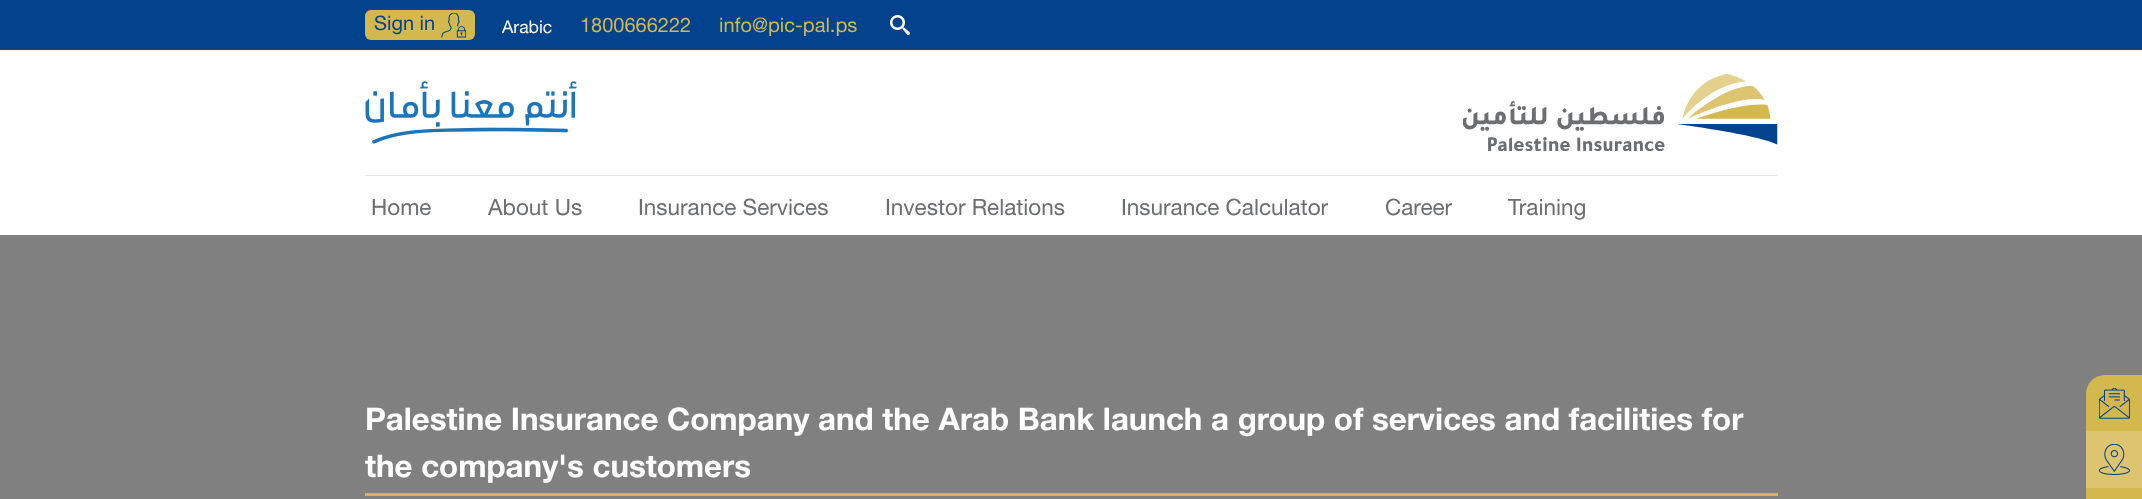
<!DOCTYPE html>
<meta charset="utf-8">
<style>body { margin: 0 } canvas { display: block }</style>
<canvas id="canvas" width="2142" height="499"></canvas>
<script type="module">
  const canvas = document.getElementById("canvas");
  const g = canvas.getContext("2d");
  g.miterLimit = 4;
  g.fontKerning = "normal";
  function drawText(s, x, y, [font, color]) {
    g.font = font;
    g.fillStyle = color;
    g.fillText(s, x, y);
  }
  function fillBox(x, y, w, h, color) {
    g.fillStyle = color;
    g.fillRect(x, y, w, h);
  }
  function fillRounded(x, y, w, h, r, color) {
    g.fillStyle = color;
    g.beginPath();
    g.roundRect(x, y, w, h, r);
    g.fill();
  }
  async function drawPicture(src, x, y, w, h) {
    const img = new Image();
    img.src = src;
    await img.decode();
    g.drawImage(img, x, y, w, h);
  }

  const s1 = ["20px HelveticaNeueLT", "#03428D"];
  const s2 = ["17.5px HelveticaNeueLT", "#FFFFFF"];
  const s3 = ["20px HelveticaNeueLT", "#D3B84E"];
  const s4 = ["22.5px HelveticaNeueLT", "#6D6E70"];
  const s5 = ["bold 31.25px HelveticaNeueLT", "#FFFFFF"];

  fillBox(0, 0, 2142, 499, "#FFFFFF");
  fillBox(0, 0, 2142, 50, "#03428D");
  fillRounded(365, 10, 110, 30, 6, "#D3B84E");
  drawText("Sign in", 374, 30, s1);
  await drawPicture("pic1.png", 441, 13, 25, 25);
  drawText("Arabic", 502, 33, s2);
  drawText("1800666222", 580, 32, s3);
  drawText("info@pic-pal.ps", 719, 32, s3);
  await drawPicture("pic2.png", 890, 15, 20, 20);
  await drawPicture("pic3.png", 365, 81, 212, 63);
  await drawPicture("pic4.png", 1463, 74, 315, 77);
  fillBox(365, 175, 1413, 1, "#E3E3E4");
  drawText("Home", 371, 215, s4);
  drawText("About Us", 488, 215, s4);
  drawText("Insurance Services", 638, 215, s4);
  drawText("Investor Relations", 885, 215, s4);
  drawText("Insurance Calculator", 1121, 215, s4);
  drawText("Career", 1385, 215, s4);
  drawText("Training", 1508, 215, s4);
  fillBox(0, 235, 2142, 264, "#808080");
  fillBox(365, 493, 1413, 3, "#D3B84E");
  drawText("Palestine Insurance Company and the Arab Bank launch a group of services and facilities for", 365, 430, s5);
  drawText("the company's customers", 365, 477, s5);
  g.fillStyle = "#D3B84E";
  g.beginPath();
  g.moveTo(2105, 375);
  g.lineTo(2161, 375);
  g.lineTo(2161, 431);
  g.lineTo(2086, 431);
  g.lineTo(2086, 394);
  g.bezierCurveTo(2086, 383.5, 2094.5, 375, 2105, 375);
  g.closePath();
  g.fill();
  await drawPicture("pic5.png", 2099, 388, 31, 31);
  fillBox(2086, 431, 56, 57, "#DDC570");
  await drawPicture("pic6.png", 2099, 444, 31, 31);
  fillBox(2086, 488, 56, 11, "#D3B84E");
</script>
